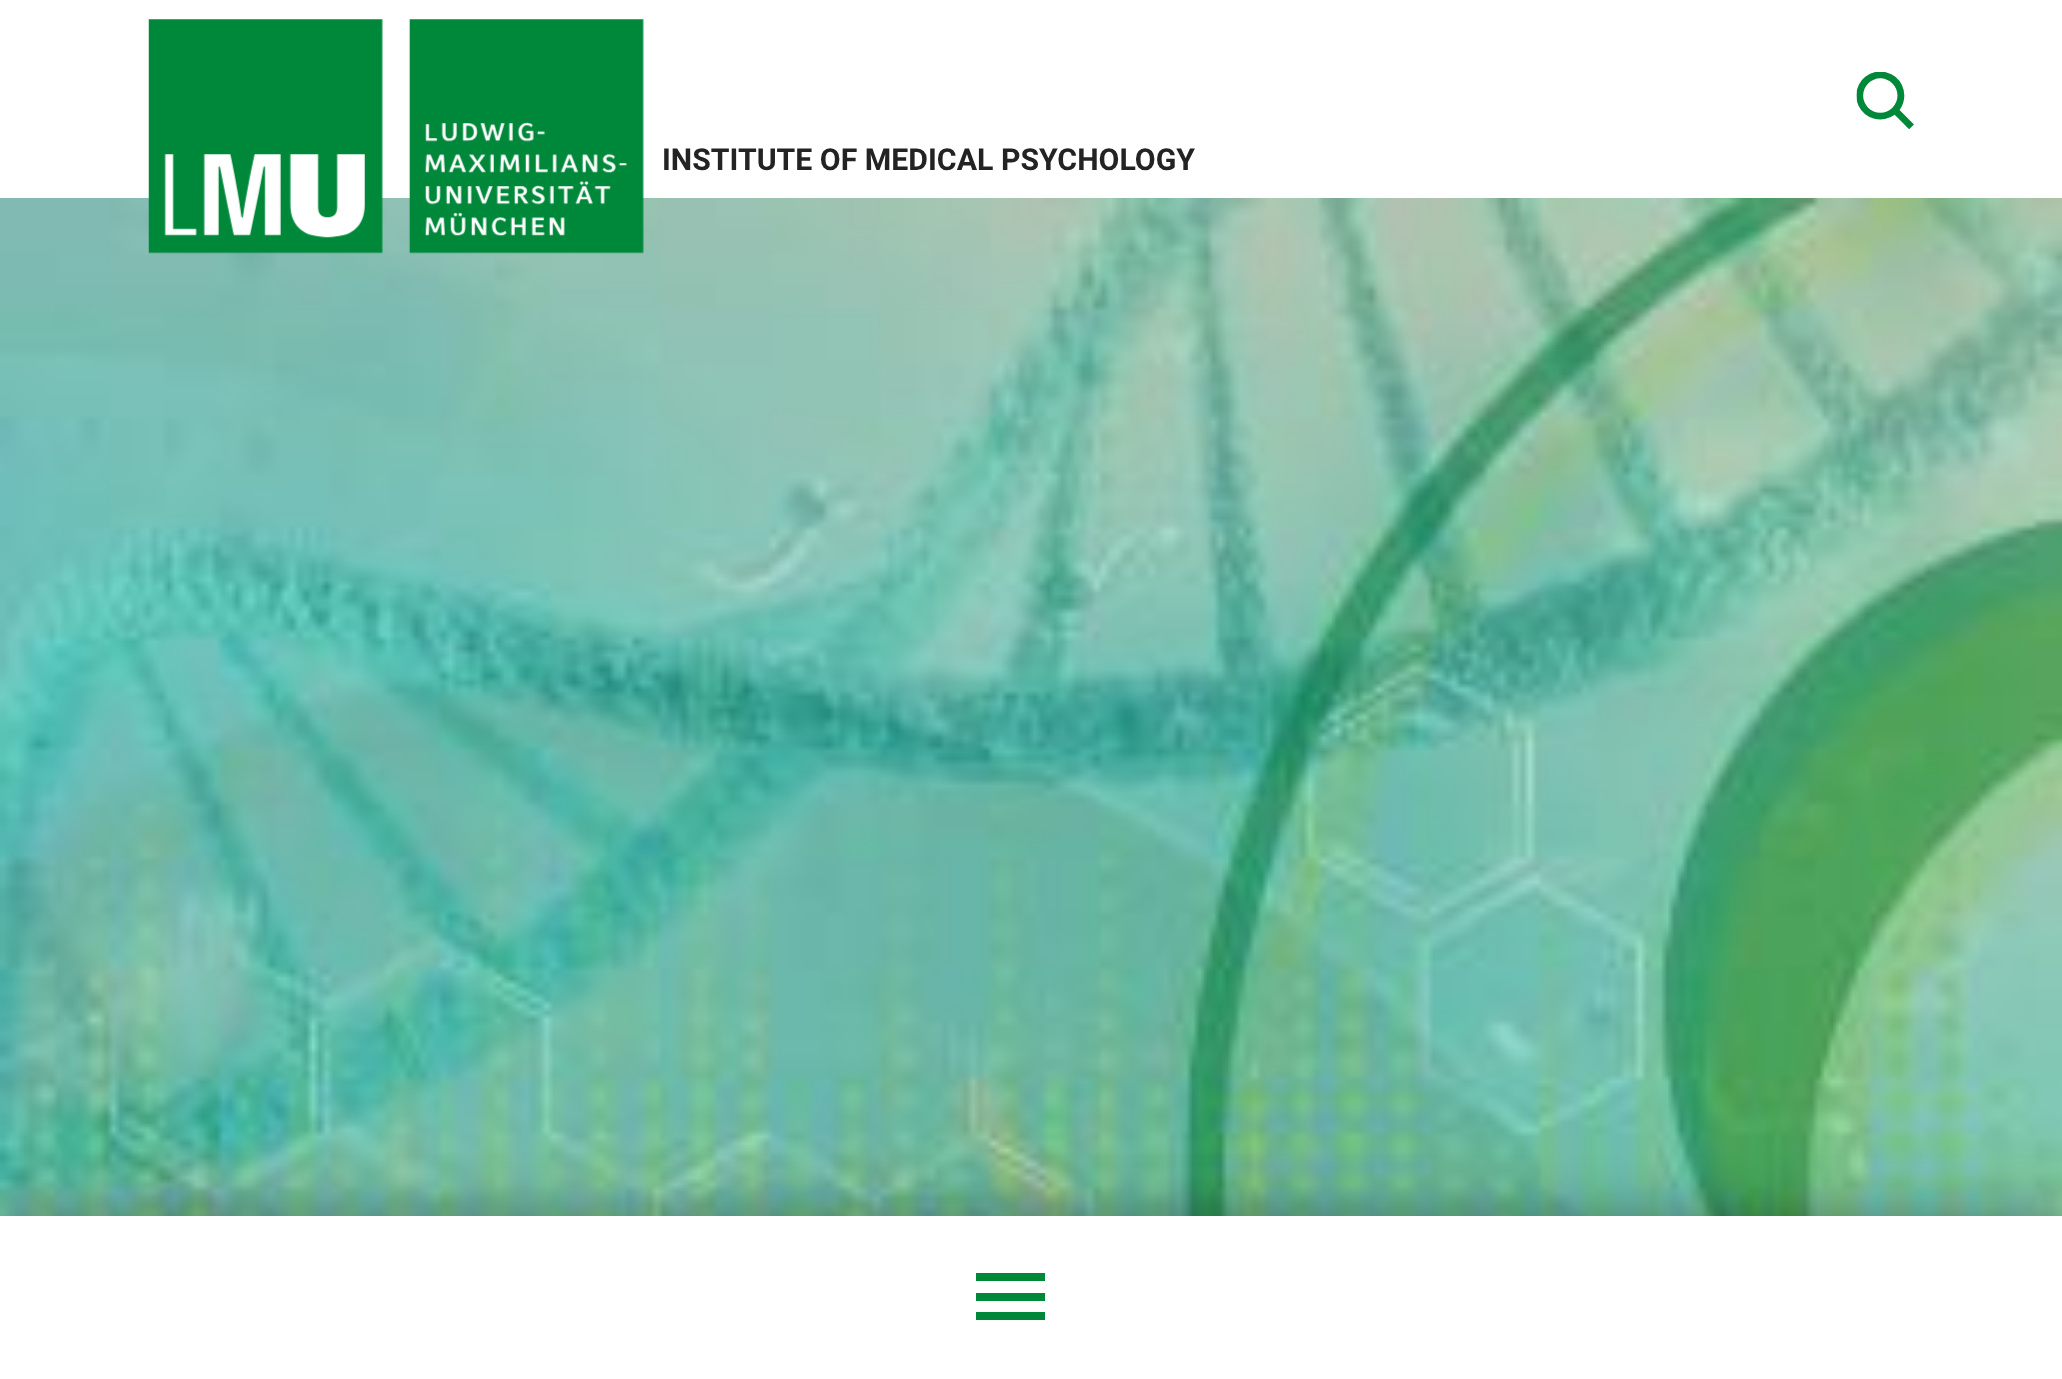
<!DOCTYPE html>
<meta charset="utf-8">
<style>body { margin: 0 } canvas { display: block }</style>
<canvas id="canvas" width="2062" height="1379"></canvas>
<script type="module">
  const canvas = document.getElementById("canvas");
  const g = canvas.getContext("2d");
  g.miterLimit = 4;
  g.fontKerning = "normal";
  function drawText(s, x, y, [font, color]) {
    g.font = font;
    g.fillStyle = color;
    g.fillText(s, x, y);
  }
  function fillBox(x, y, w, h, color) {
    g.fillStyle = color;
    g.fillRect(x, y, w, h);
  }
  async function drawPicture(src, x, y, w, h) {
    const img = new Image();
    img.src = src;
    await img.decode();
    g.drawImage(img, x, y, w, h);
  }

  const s1 = ["bold 30.25px Roboto", "#232323"];

  fillBox(0, 0, 2062, 1379, "#FFFFFF");
  await drawPicture("pic3.png", 0, 198, 2062, 1018);
  await drawPicture("pic1.png", 148, 19, 496, 235);
  await drawPicture("pic2.png", 1856, 72, 58, 57);
  drawText("INSTITUTE OF MEDICAL PSYCHOLOGY", 662, 170, s1);
  g.fillStyle = "rgba(0, 0, 0, 0.36)";
  g.filter = "blur(27.5px)";
  g.beginPath();
  g.rect(0, 1216, 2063, 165);
  g.fill();
  g.filter = "none";
  fillBox(0, 1216, 2062, 163, "#FFFFFF");
  fillBox(976, 1273, 69, 8, "#00883A");
  fillBox(976, 1293, 69, 8, "#00883A");
  fillBox(976, 1312, 69, 8, "#00883A");
</script>
